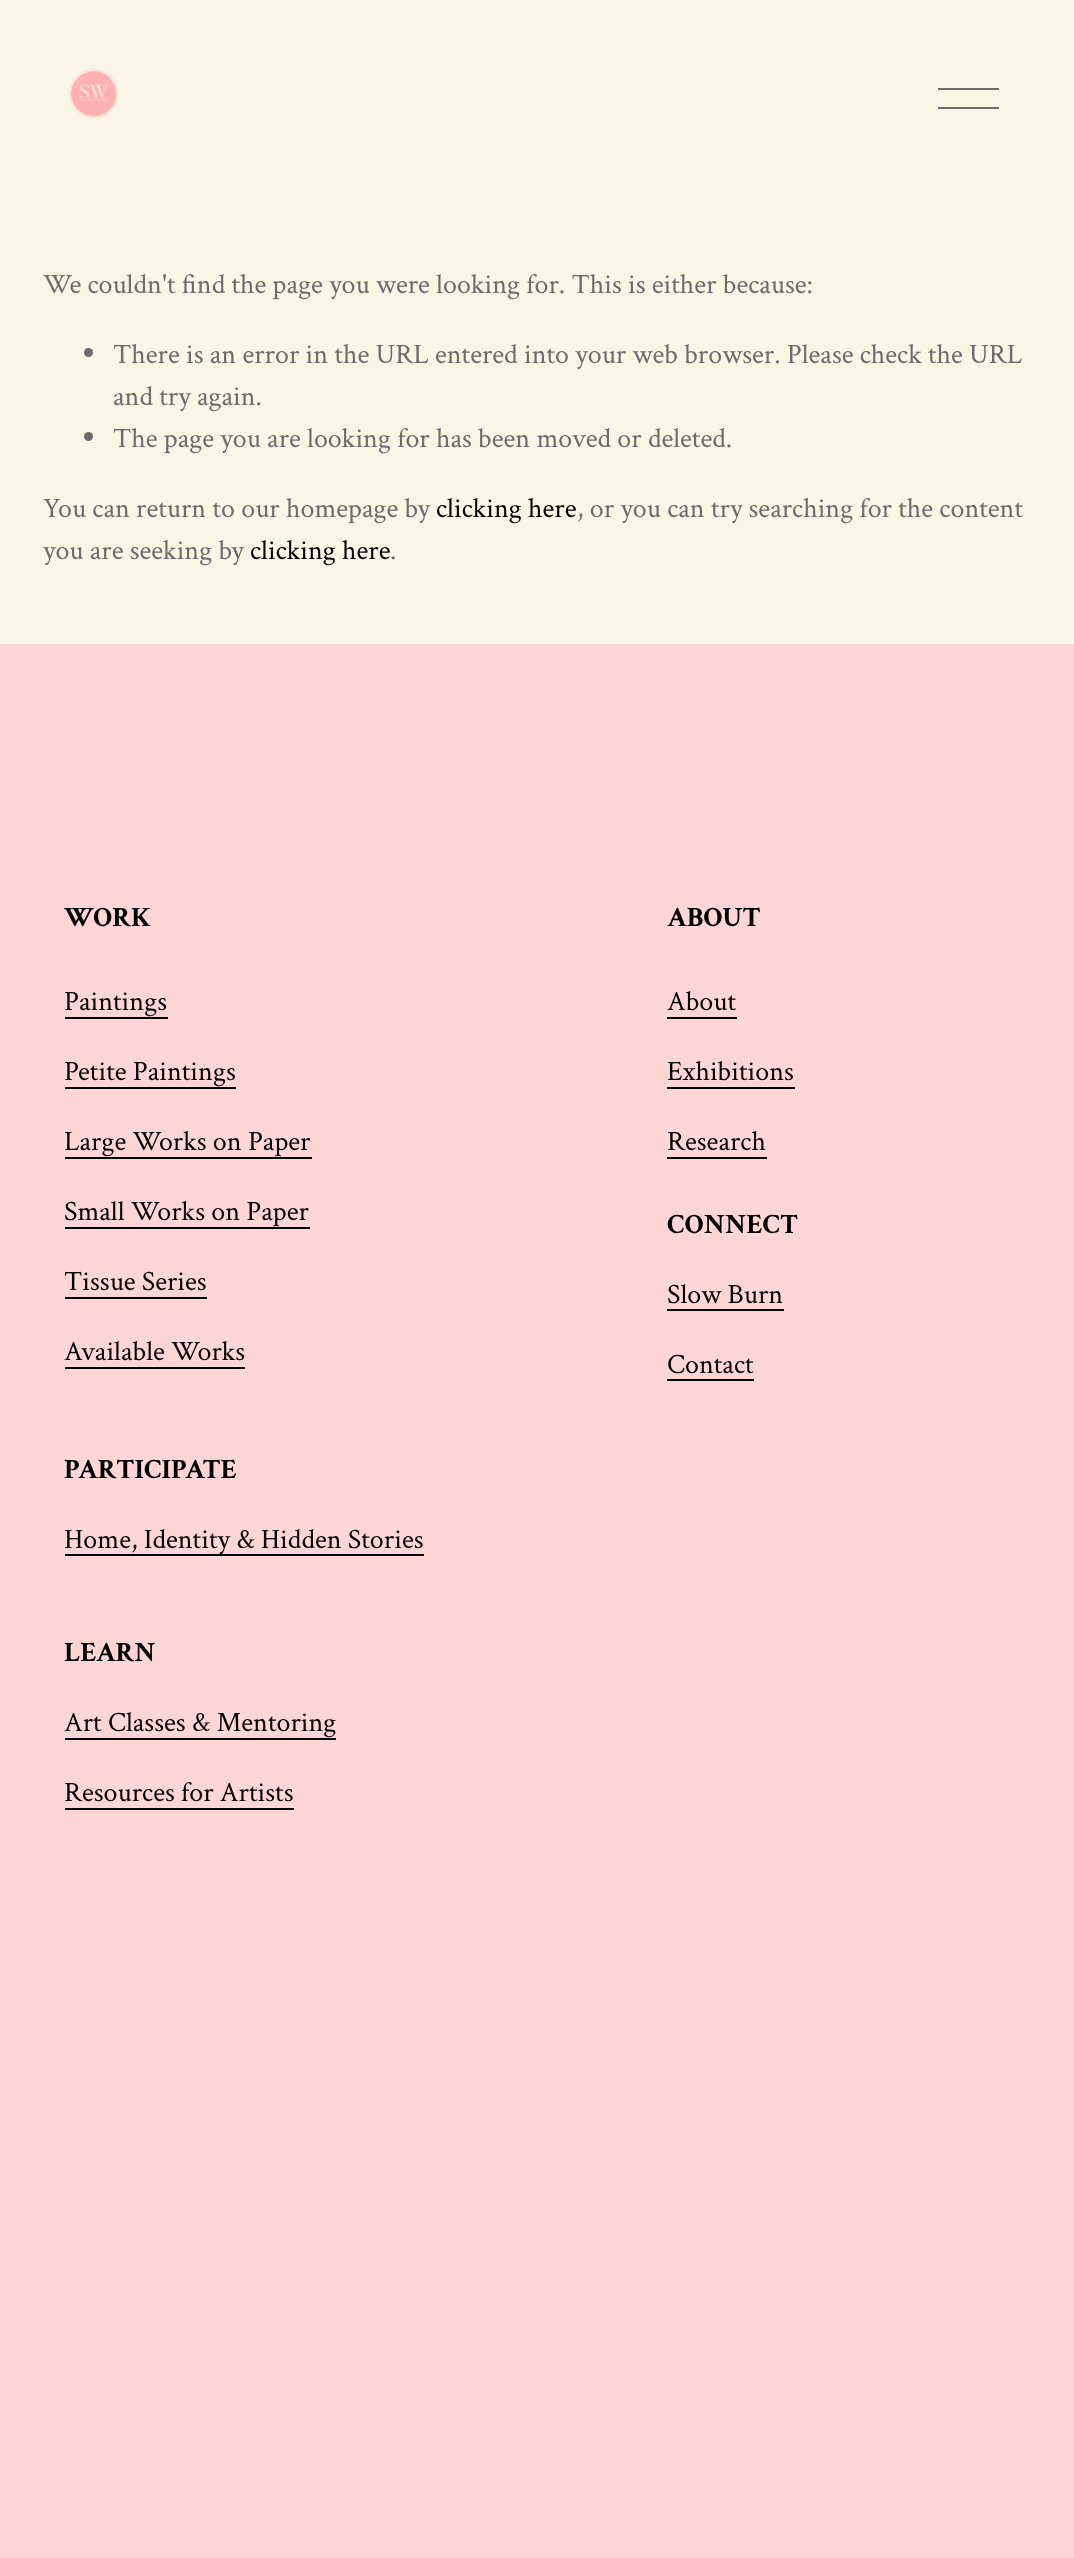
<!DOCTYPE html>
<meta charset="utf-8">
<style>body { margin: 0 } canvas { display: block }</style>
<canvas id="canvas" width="1074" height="2558"></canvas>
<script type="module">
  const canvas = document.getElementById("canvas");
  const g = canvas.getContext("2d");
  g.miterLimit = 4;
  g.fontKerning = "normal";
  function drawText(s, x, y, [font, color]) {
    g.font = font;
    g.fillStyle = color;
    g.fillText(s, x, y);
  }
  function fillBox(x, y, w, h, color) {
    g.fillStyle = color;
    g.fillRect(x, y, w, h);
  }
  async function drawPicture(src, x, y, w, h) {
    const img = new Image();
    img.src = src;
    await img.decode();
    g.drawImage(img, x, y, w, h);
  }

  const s1 = ["28px Crimson Text", "#6D6C6C"];
  const s2 = ["28px Crimson Text", "#000000"];
  const s3 = ["bold 28px Crimson Text", "#000000"];

  fillBox(0, 0, 1074, 2558, "#F9F6E5");
  await drawPicture("pic1.png", 69, 69, 50, 50);
  fillBox(938, 88, 61, 2, "#6D6C6C");
  fillBox(938, 107, 61, 2, "#6D6C6C");
  drawText("We couldn't find the page you were looking for. This is either because:", 43, 293, s1);
  g.beginPath();
  g.arc(88.5, 352.5, 4.5, 0, Math.PI * 2);
  g.fill();
  drawText("There is an error in the URL entered into your web browser. Please check the URL", 113, 363, s1);
  drawText("and try again.", 113, 405, s1);
  g.beginPath();
  g.arc(88.5, 436.5, 4.5, 0, Math.PI * 2);
  g.fill();
  drawText("The page you are looking for has been moved or deleted.", 113, 447, s1);
  drawText("You can return to our homepage by", 43, 517, s1);
  drawText("clicking here", 436, 517, s2);
  drawText(", or you can try searching for the content", 577, 517, s1);
  drawText("you are seeking by", 43, 559, s1);
  drawText("clicking here", 250, 559, s2);
  drawText(".", 390, 559, s1);
  fillBox(0, 644, 1074, 1914, "#FFD6D6");
  drawText("WORK", 64, 926, s3);
  drawText("Paintings", 64, 1010, s2);
  fillBox(65, 1017, 103, 2, "#000000");
  drawText("Petite Paintings", 64, 1080, s2);
  fillBox(65, 1087, 171, 2, "#000000");
  drawText("Large Works on Paper", 64, 1150, s2);
  fillBox(65, 1157, 247, 2, "#000000");
  drawText("Small Works on Paper", 64, 1220, s2);
  fillBox(65, 1227, 245, 2, "#000000");
  drawText("Tissue Series", 64, 1290, s2);
  fillBox(65, 1297, 142, 2, "#000000");
  drawText("Available Works", 64, 1360, s2);
  fillBox(65, 1367, 180, 2, "#000000");
  drawText("ABOUT", 667, 926, s3);
  drawText("About", 667, 1010, s2);
  fillBox(667, 1017, 70, 2, "#000000");
  drawText("Exhibitions", 667, 1080, s2);
  fillBox(667, 1087, 128, 2, "#000000");
  drawText("Research", 667, 1150, s2);
  fillBox(667, 1157, 100, 2, "#000000");
  drawText("CONNECT", 667, 1233, s3);
  drawText("Slow Burn", 667, 1303, s2);
  fillBox(667, 1309, 117, 2, "#000000");
  drawText("Contact", 667, 1373, s2);
  fillBox(667, 1379, 87, 2, "#000000");
  drawText("PARTICIPATE", 64, 1478, s3);
  fillBox(65, 1554, 359, 2, "#000000");
  drawText("Home, Identity & Hidden Stories", 64, 1548, s2);
  drawText("LEARN", 64, 1661, s3);
  drawText("Art Classes & Mentoring", 64, 1731, s2);
  fillBox(65, 1738, 271, 2, "#000000");
  drawText("Resources for Artists", 64, 1801, s2);
  fillBox(65, 1808, 229, 2, "#000000");
</script>
